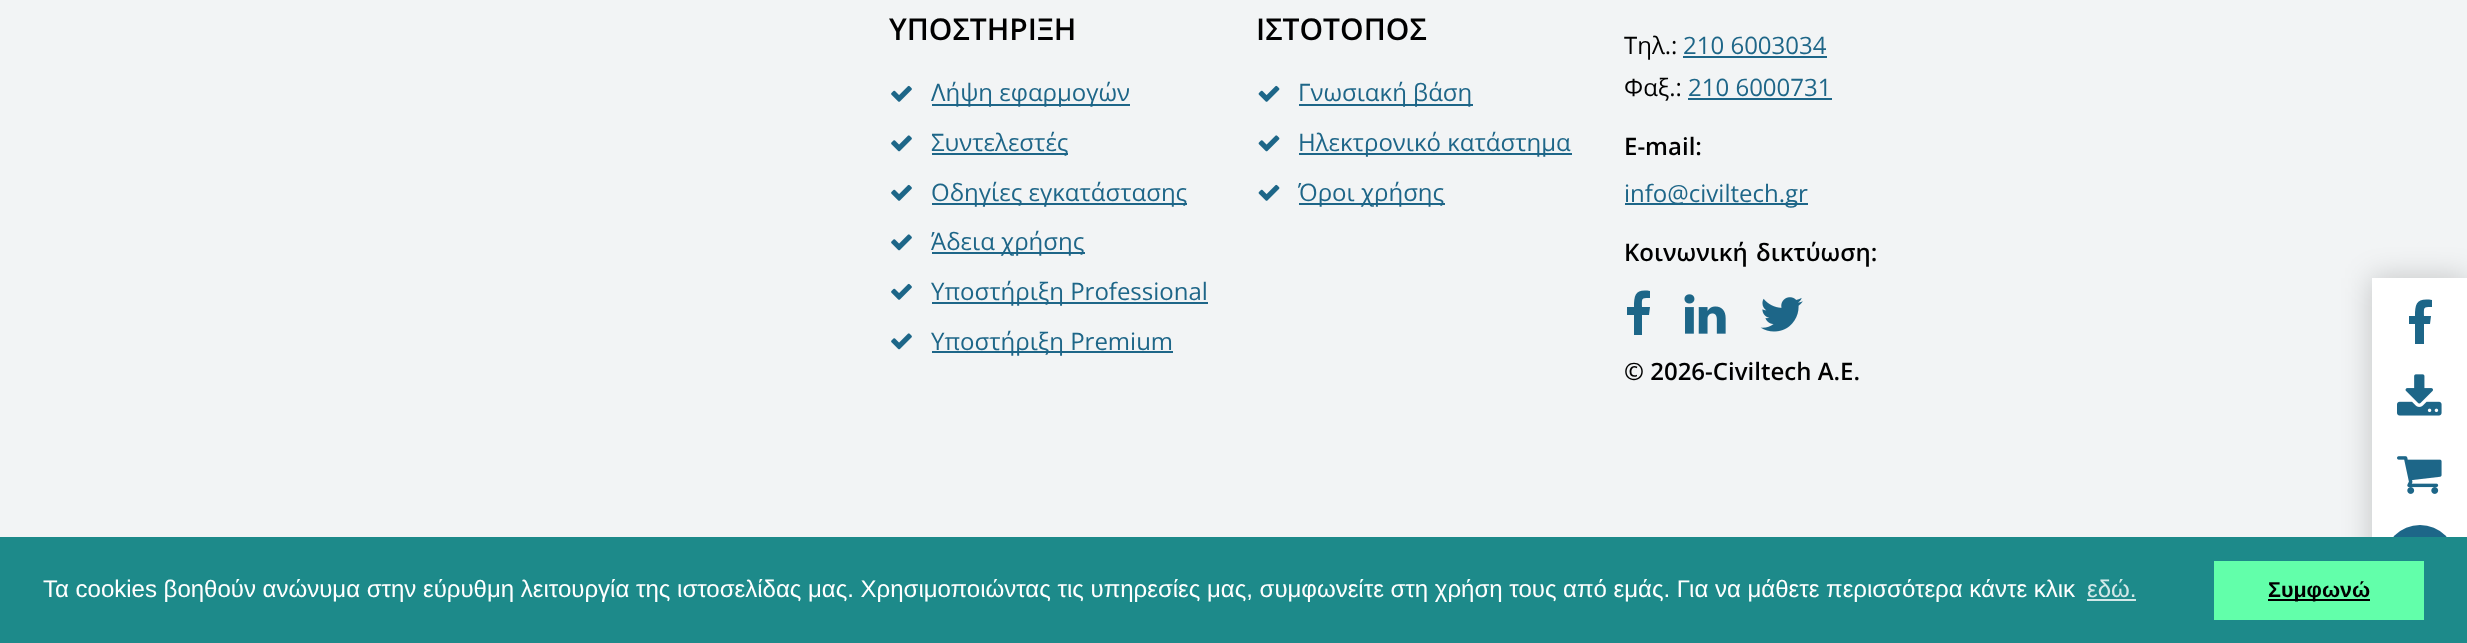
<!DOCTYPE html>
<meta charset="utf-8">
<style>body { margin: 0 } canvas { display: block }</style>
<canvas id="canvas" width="2467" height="643"></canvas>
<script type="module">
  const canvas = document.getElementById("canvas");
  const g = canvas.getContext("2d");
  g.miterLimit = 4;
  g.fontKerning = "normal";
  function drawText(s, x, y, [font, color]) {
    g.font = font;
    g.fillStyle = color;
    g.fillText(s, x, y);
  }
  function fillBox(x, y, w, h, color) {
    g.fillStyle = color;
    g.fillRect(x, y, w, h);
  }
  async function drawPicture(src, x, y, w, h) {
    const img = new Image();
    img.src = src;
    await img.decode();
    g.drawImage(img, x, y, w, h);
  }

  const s1 = ["600 30px Open Sans", "#000000"];
  const s2 = ["24px Open Sans", "#1E6688"];
  const s3 = ["24px Open Sans", "#000000"];
  const s4 = ["600 24px Open Sans", "#000000"];
  const s5 = ["24px Liberation Sans", "#FFFFFF"];
  const s6 = ["24px Liberation Sans", "#D2E8E8"];
  const s7 = ["bold 21.5px Liberation Sans", "#000000"];

  fillBox(0, 0, 2467, 643, "#F2F4F5");
  drawText("ΥΠΟΣΤΗΡΙΞΗ", 889, 40, s1);
  await drawPicture("pic1.png", 891, 85, 21, 17);
  fillBox(932, 104, 198, 2, "#1E6688");
  drawText("Λήψη εφαρμογών", 931, 101, s2);
  await drawPicture("pic2.png", 891, 135, 21, 17);
  fillBox(932, 153, 136, 2, "#1E6688");
  drawText("Συντελεστές", 931, 151, s2);
  await drawPicture("pic1.png", 891, 184, 21, 17);
  fillBox(932, 203, 255, 2, "#1E6688");
  drawText("Οδηγίες εγκατάστασης", 931, 201, s2);
  await drawPicture("pic2.png", 891, 234, 21, 17);
  fillBox(932, 252, 153, 2, "#1E6688");
  drawText("Άδεια χρήσης", 931, 250, s2);
  await drawPicture("pic1.png", 891, 283, 21, 17);
  fillBox(932, 302, 276, 2, "#1E6688");
  drawText("Υποστήριξη Professional", 931, 300, s2);
  await drawPicture("pic2.png", 891, 333, 21, 17);
  fillBox(932, 351, 241, 2, "#1E6688");
  drawText("Υποστήριξη Premium", 931, 350, s2);
  drawText("ΙΣΤΟΤΟΠΟΣ", 1256, 40, s1);
  await drawPicture("pic3.png", 1258, 85, 22, 17);
  fillBox(1299, 104, 174, 2, "#1E6688");
  drawText("Γνωσιακή βάση", 1298, 101, s2);
  await drawPicture("pic4.png", 1258, 135, 22, 17);
  fillBox(1299, 153, 273, 2, "#1E6688");
  drawText("Ηλεκτρονικό κατάστημα", 1298, 151, s2);
  await drawPicture("pic3.png", 1258, 184, 22, 17);
  fillBox(1299, 203, 146, 2, "#1E6688");
  drawText("Όροι χρήσης", 1298, 201, s2);
  drawText("Τηλ.:", 1624, 54, s3);
  drawText("210 6003034", 1683, 54, s2);
  fillBox(1683, 56, 144, 2, "#1D6688");
  drawText("Φαξ.:", 1624, 96, s3);
  drawText("210 6000731", 1688, 96, s2);
  fillBox(1688, 98, 144, 2, "#1D6688");
  drawText("E-mail:", 1624, 155, s4);
  fillBox(1625, 203, 183, 2, "#1D6688");
  drawText("info@civiltech.gr", 1624, 202, s2);
  g.wordSpacing = "2px";
  drawText("Κοινωνική δικτύωση:", 1624, 261, s4);
  g.fillStyle = "#1D6688";
  g.beginPath();
  g.moveTo(1650, 291);
  g.lineTo(1650, 298);
  g.bezierCurveTo(1641, 298, 1642, 298, 1642, 307);
  g.lineTo(1650, 307);
  g.lineTo(1649, 315);
  g.lineTo(1642, 315);
  g.lineTo(1642, 335);
  g.lineTo(1634, 335);
  g.lineTo(1634, 315);
  g.lineTo(1627, 315);
  g.lineTo(1627, 307);
  g.lineTo(1634, 307);
  g.bezierCurveTo(1634, 294, 1636, 289, 1650, 291);
  g.closePath();
  g.fill();
  await drawPicture("pic5.png", 1684, 294, 42, 40);
  await drawPicture("pic6.png", 1760, 297, 43, 35);
  g.wordSpacing = "0px";
  drawText("© 2026-Civiltech Α.Ε.", 1624, 380, s4);
  g.fillStyle = "rgba(0, 0, 0, 0.2)";
  g.filter = "blur(15px)";
  g.beginPath();
  g.rect(2372, 278, 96, 352);
  g.fill();
  g.filter = "none";
  fillBox(2372, 278, 95, 259, "#FFFFFF");
  g.fillStyle = "#1D6688";
  g.beginPath();
  g.moveTo(2432, 300);
  g.lineTo(2432, 307);
  g.bezierCurveTo(2423, 307, 2424, 307, 2424, 316);
  g.lineTo(2431, 316);
  g.lineTo(2430, 324);
  g.lineTo(2424, 324);
  g.lineTo(2424, 344);
  g.lineTo(2415, 344);
  g.lineTo(2415, 324);
  g.lineTo(2409, 324);
  g.lineTo(2409, 316);
  g.lineTo(2415, 316);
  g.bezierCurveTo(2415, 303, 2417, 298, 2432, 300);
  g.closePath();
  g.fill();
  await drawPicture("pic7.png", 2397, 374, 45, 42);
  await drawPicture("pic8.png", 2397, 456, 45, 38);
  g.beginPath();
  g.arc(2420, 561, 36, 0, Math.PI * 2);
  g.fill();
  fillBox(0, 537, 2467, 106, "#1D8A8A");
  drawText("Τα cookies βοηθούν ανώνυμα στην εύρυθμη λειτουργία της ιστοσελίδας μας. Χρησιμοποιώντας τις υπηρεσίες μας, συμφωνείτε στη χρήση τους από εμάς. Για να μάθετε περισσότερα κάντε κλικ", 43, 597, s5);
  drawText("εδώ.", 2087, 597, s6);
  fillBox(2087, 599, 49, 2, "#D2E8E8");
  fillBox(2214, 561, 210, 59, "#62FFAA");
  fillBox(2268, 599, 102, 2, "#000000");
  drawText("Συμφωνώ", 2268, 597, s7);
</script>
